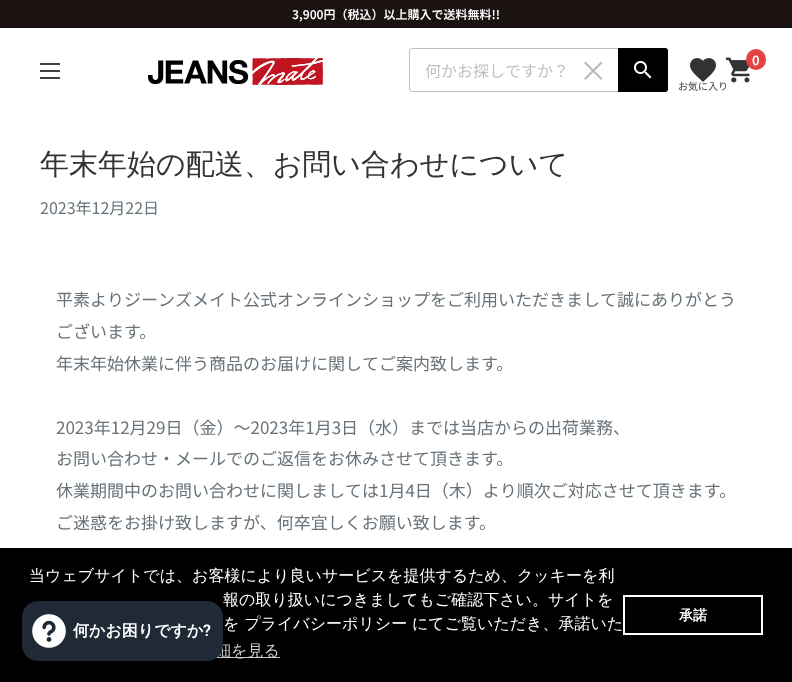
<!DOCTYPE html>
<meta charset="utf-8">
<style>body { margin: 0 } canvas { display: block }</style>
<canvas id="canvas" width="792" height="682"></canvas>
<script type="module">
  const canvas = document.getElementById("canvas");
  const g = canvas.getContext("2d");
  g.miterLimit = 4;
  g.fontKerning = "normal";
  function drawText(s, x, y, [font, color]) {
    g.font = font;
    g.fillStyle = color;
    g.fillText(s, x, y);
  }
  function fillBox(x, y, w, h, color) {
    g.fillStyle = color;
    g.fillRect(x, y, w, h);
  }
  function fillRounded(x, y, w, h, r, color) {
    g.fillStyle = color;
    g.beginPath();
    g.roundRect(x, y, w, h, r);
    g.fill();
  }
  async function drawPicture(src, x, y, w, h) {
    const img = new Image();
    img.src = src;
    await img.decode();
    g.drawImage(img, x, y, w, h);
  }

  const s1 = ["600 12px Noto Sans JP", "#FFFFFF"];
  const s2 = ["16px Noto Sans JP", "#C1C1C1"];
  const s3 = ["600 13px Noto Sans JP", "#FFFFFF"];
  const s4 = ["10px Noto Sans JP", "#414141"];
  const s5 = ["500 29px WenQuanYi Zen Hei", "#333333"];
  const s6 = ["16px Noto Sans JP", "#677279"];
  const s7 = ["17px Noto Sans JP", "#677279"];
  const s8 = ["500 16px WenQuanYi Zen Hei", "#FFFFFF"];
  const s9 = ["500 16px WenQuanYi Zen Hei", "#CCCCCC"];
  const s10 = ["bold 14px WenQuanYi Zen Hei", "#FFFFFF"];
  const s11 = ["bold 16px WenQuanYi Zen Hei", "#FFFFFF"];
  const s12 = ["600 16px Roboto", "#FFFFFF"];

  fillBox(0, 0, 792, 682, "#FFFFFF");
  fillBox(0, 0, 792, 28, "#1A1311");
  drawText("3,900円（税込）以上購入で送料無料!!", 292, 19, s1);
  await drawPicture("pic1.png", 40, 63, 20, 16);
  await drawPicture("pic2.png", 148, 58, 175, 27);
  g.beginPath();
  g.roundRect(409.5, 48.5, 258, 43, 2.5);
  g.strokeStyle = "#C1C1C1";
  g.stroke();
  drawText("何かお探しですか？", 425, 77, s2);
  await drawPicture("pic3.png", 584, 61, 19, 19);
  g.fillStyle = "#000000";
  g.beginPath();
  g.roundRect(618, 48, 50, 44, [0, 3, 3, 0]);
  g.fill();
  await drawPicture("pic4.png", 634, 61, 18, 18);
  await drawPicture("pic5.png", 726, 57, 24, 26);
  fillRounded(746, 49, 20, 21, 10, "#E34242");
  drawText("0", 752, 65, s3);
  await drawPicture("pic6.png", 690, 58, 26, 24);
  drawText("お気に入り", 678, 90, s4);
  drawText("年末年始の配送、お問い合わせについて", 40, 174, s5);
  drawText("2023年12月22日", 40, 214, s6);
  drawText("平素よりジーンズメイト公式オンラインショップをご利用いただきまして誠にありがとう", 56, 306, s7);
  drawText("ございます。", 56, 338, s7);
  drawText("年末年始休業に伴う商品のお届けに関してご案内致します。", 56, 370, s7);
  drawText("2023年12月29日（金）～2023年1月3日（水）までは当店からの出荷業務、", 56, 434, s7);
  drawText("お問い合わせ・メールでのご返信をお休みさせて頂きます。", 56, 465, s7);
  drawText("休業期間中のお問い合わせに関しましては1月4日（木）より順次ご対応させて頂きます。", 56, 497, s7);
  drawText("ご迷惑をお掛け致しますが、何卒宜しくお願い致します。", 56, 529, s7);
  fillBox(0, 548, 792, 134, "#000000");
  drawText("当ウェブサイトでは、お客様により良いサービスを提供するため、クッキーを利", 29, 581, s8);
  drawText("報の取り扱いにつきましてもご確認下さい。サイトを", 223, 605, s8);
  drawText("を プライバシーポリシー にてご覧いただき、承諾いた", 223, 629, s8);
  fillBox(216, 657, 64, 1, "#CCCCCC");
  drawText("細を見る", 215, 656, s9);
  g.strokeStyle = "#FFFFFF";
  g.lineWidth = 2;
  g.strokeRect(624, 596, 138, 38);
  drawText("承諾", 679, 620, s10);
  g.fillStyle = "rgba(0, 0, 0, 0.15)";
  g.filter = "blur(2.5px)";
  g.beginPath();
  g.roundRect(22, 601, 201, 60, 16);
  g.fill();
  g.filter = "none";
  fillRounded(22, 601, 201, 60, 16, "#202A36");
  await drawPicture("pic7.png", 32, 614, 34, 34);
  drawText("何かお困りですか", 73, 636, s11);
  drawText("?", 203, 636, s12);
</script>
